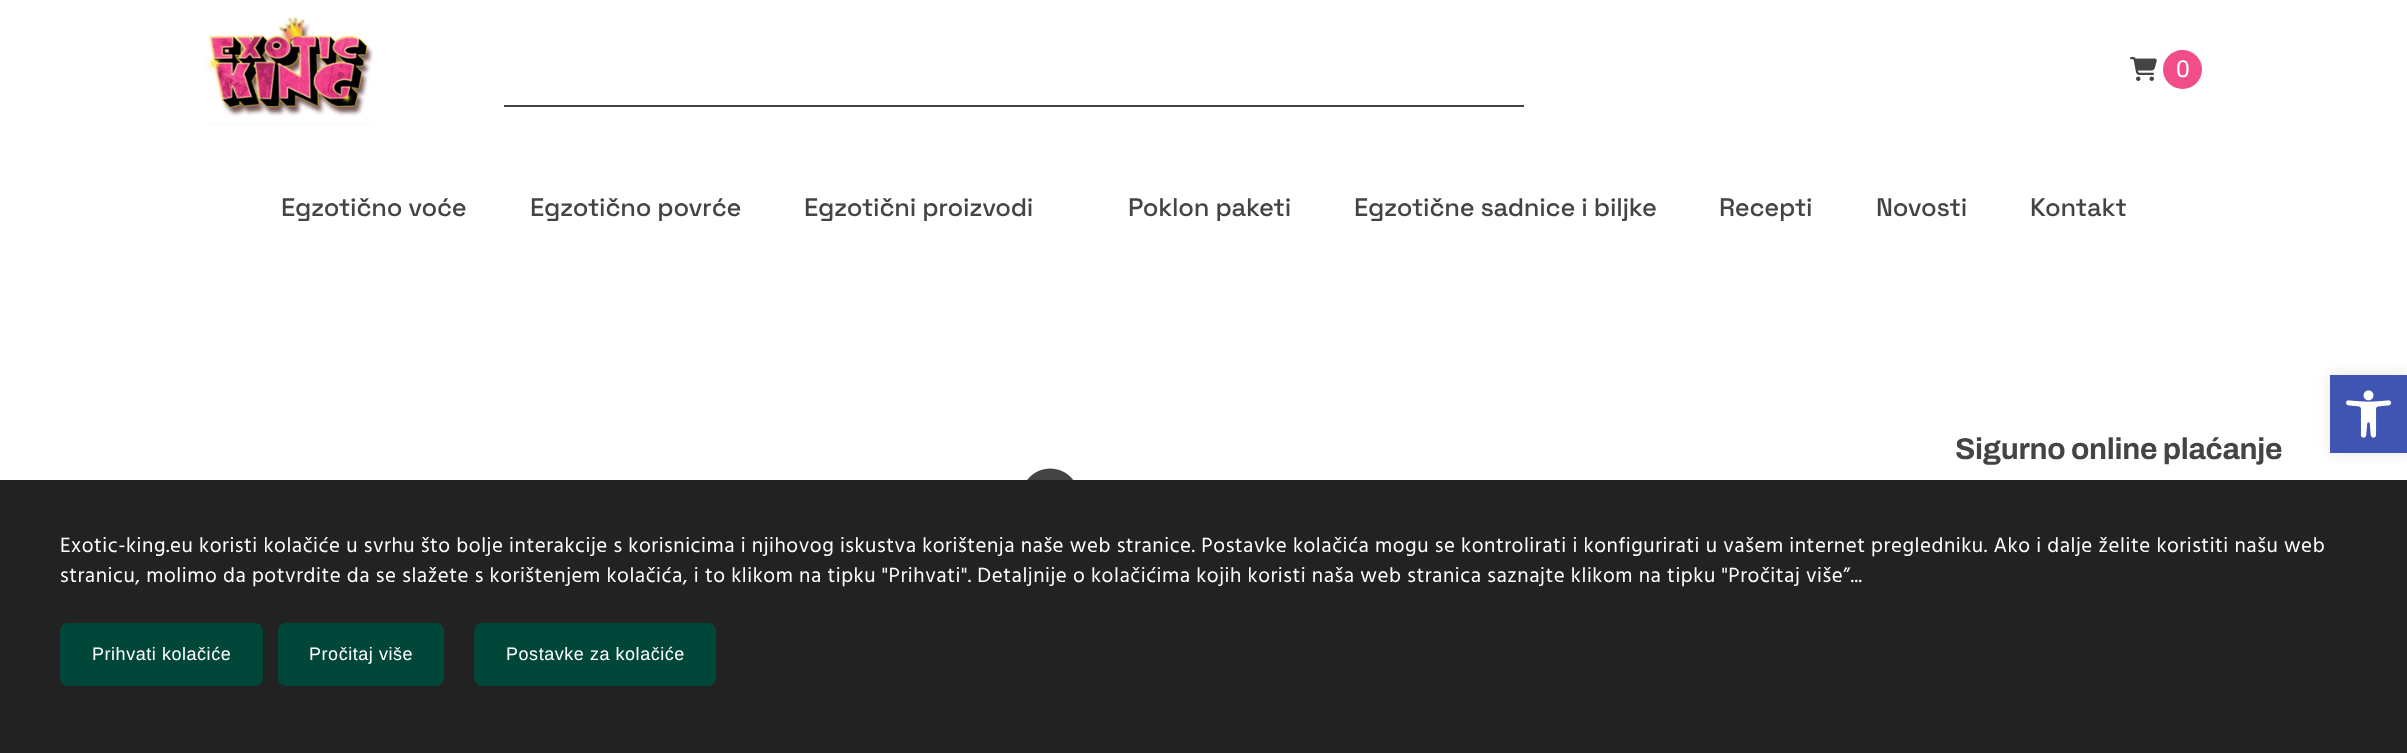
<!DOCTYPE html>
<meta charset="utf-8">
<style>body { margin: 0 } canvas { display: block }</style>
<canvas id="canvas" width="2407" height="753"></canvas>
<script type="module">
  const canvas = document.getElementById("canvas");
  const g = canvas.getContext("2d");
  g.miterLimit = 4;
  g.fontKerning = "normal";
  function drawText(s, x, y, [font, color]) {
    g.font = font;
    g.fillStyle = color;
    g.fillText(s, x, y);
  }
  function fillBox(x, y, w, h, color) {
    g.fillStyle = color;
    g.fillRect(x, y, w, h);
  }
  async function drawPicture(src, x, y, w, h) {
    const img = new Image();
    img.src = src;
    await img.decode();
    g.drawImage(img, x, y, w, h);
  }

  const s1 = ["24px Archivo", "#FFFFFF"];
  const s2 = ["500 25.5px Space Grotesk", "#444444"];
  const s3 = ["bold 30px Archivo", "#444444"];
  const s4 = ["21px Hind", "#FFFFFF"];
  const s5 = ["18px Liberation Sans", "#FFFFFF"];

  fillBox(0, 0, 2407, 753, "#FFFFFF");
  await drawPicture("pic1.png", 206, 17, 167, 108);
  await drawPicture("pic2.png", 2130, 57, 27, 24);
  g.fillStyle = "#F14D89";
  g.beginPath();
  g.arc(2182.5, 69.5, 19.5, 0, Math.PI * 2);
  g.fill();
  drawText("0", 2176, 77, s1);
  fillBox(504, 105, 1020, 2, "#444444");
  g.letterSpacing = "-0.25px";
  drawText("Egzotično voće", 281, 216, s2);
  drawText("Egzotično povrće", 530, 216, s2);
  drawText("Egzotični proizvodi", 804, 216, s2);
  drawText("Poklon paketi", 1128, 216, s2);
  drawText("Egzotične sadnice i biljke", 1354, 216, s2);
  drawText("Recepti", 1719, 216, s2);
  drawText("Novosti", 1876, 216, s2);
  drawText("Kontakt", 2030, 216, s2);
  g.letterSpacing = "-0.3px";
  drawText("Sigurno online plaćanje", 1955, 459, s3);
  await drawPicture("pic3.png", 1027, 468, 46, 12);
  g.fillStyle = "rgba(0, 0, 0, 0.1)";
  g.filter = "blur(7.5px)";
  g.beginPath();
  g.rect(2330, 375, 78, 78);
  g.fill();
  g.filter = "none";
  fillBox(2330, 375, 77, 78, "#4054B2");
  await drawPicture("pic4.png", 2346, 390, 46, 48);
  fillBox(0, 480, 2407, 273, "#222222");
  g.letterSpacing = "0.54px";
  drawText("Exotic-king.eu koristi kolačiće u svrhu što bolje interakcije s korisnicima i njihovog iskustva korištenja naše web stranice. Postavke kolačića mogu se kontrolirati i konfigurirati u vašem internet pregledniku. Ako i dalje želite koristiti našu web", 60, 552, s4);
  drawText("stranicu, molimo da potvrdite da se slažete s korištenjem kolačića, i to klikom na tipku \"Prihvati\". Detaljnije o kolačićima kojih koristi naša web stranica saznajte klikom na tipku \"Pročitaj više”...", 60, 582, s4);
  g.fillStyle = "#004739";
  g.beginPath();
  g.roundRect(61, 624, 201, 61, 7);
  g.fill();
  g.strokeStyle = "#004739";
  g.lineWidth = 2;
  g.stroke();
  drawText("Prihvati kolačiće", 92, 660, s5);
  g.fillStyle = "#004739";
  g.beginPath();
  g.roundRect(279, 624, 164, 61, 7);
  g.fill();
  g.stroke();
  drawText("Pročitaj više", 309, 660, s5);
  g.fillStyle = "#004739";
  g.beginPath();
  g.roundRect(475, 624, 240, 61, 7);
  g.fill();
  g.stroke();
  drawText("Postavke za kolačiće", 506, 660, s5);
</script>
